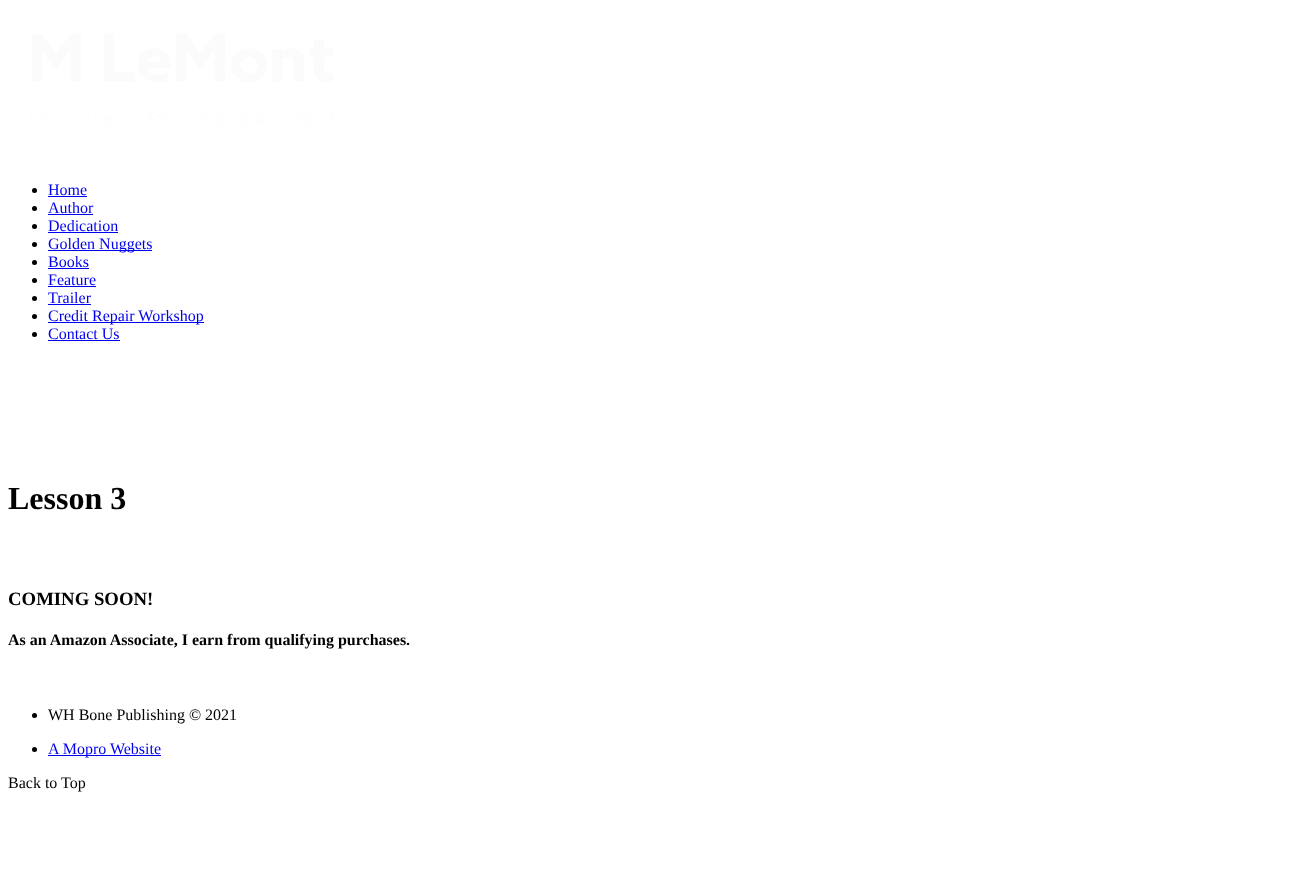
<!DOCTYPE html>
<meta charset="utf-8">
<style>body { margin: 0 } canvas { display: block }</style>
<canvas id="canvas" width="1313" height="896"></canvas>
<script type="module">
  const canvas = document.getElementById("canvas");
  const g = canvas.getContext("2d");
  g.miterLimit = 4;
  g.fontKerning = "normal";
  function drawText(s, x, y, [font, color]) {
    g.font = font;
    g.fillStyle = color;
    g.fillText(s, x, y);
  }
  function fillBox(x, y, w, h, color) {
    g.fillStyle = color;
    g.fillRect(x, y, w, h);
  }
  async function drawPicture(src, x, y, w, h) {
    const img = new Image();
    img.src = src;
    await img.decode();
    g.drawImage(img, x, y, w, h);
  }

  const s1 = ["16px Liberation Serif", "#0000EE"];
  const s2 = ["bold 32px Liberation Serif", "#000000"];
  const s3 = ["bold 18.75px Liberation Serif", "#000000"];
  const s4 = ["bold 16px Liberation Serif", "#000000"];
  const s5 = ["16px Liberation Serif", "#000000"];

  fillBox(0, 0, 1313, 896, "#FFFFFF");
  await drawPicture("pic1.png", 30, 34, 304, 91);
  g.fillStyle = "#000000";
  g.beginPath();
  g.arc(34.5, 190.5, 2.5, 0, Math.PI * 2);
  g.fill();
  drawText("Home", 48, 195, s1);
  fillBox(48, 196, 39, 1, "#0000EE");
  g.fillStyle = "#000000";
  g.beginPath();
  g.arc(34.5, 208.5, 2.5, 0, Math.PI * 2);
  g.fill();
  drawText("Author", 48, 213, s1);
  fillBox(48, 214, 45, 1, "#0000EE");
  g.fillStyle = "#000000";
  g.beginPath();
  g.arc(34.5, 226.5, 2.5, 0, Math.PI * 2);
  g.fill();
  drawText("Dedication", 48, 231, s1);
  fillBox(48, 232, 70, 1, "#0000EE");
  g.fillStyle = "#000000";
  g.beginPath();
  g.arc(34.5, 244.5, 2.5, 0, Math.PI * 2);
  g.fill();
  fillBox(48, 250, 104, 1, "#0000EE");
  drawText("Golden Nuggets", 48, 249, s1);
  g.fillStyle = "#000000";
  g.beginPath();
  g.arc(34.5, 262.5, 2.5, 0, Math.PI * 2);
  g.fill();
  drawText("Books", 48, 267, s1);
  fillBox(48, 268, 41, 1, "#0000EE");
  g.fillStyle = "#000000";
  g.beginPath();
  g.arc(34.5, 280.5, 2.5, 0, Math.PI * 2);
  g.fill();
  drawText("Feature", 48, 285, s1);
  fillBox(48, 286, 48, 1, "#0000EE");
  g.fillStyle = "#000000";
  g.beginPath();
  g.arc(34.5, 298.5, 2.5, 0, Math.PI * 2);
  g.fill();
  drawText("Trailer", 48, 303, s1);
  fillBox(48, 304, 43, 1, "#0000EE");
  g.fillStyle = "#000000";
  g.beginPath();
  g.arc(34.5, 316.5, 2.5, 0, Math.PI * 2);
  g.fill();
  fillBox(48, 322, 156, 1, "#0000EE");
  drawText("Credit Repair Workshop", 48, 321, s1);
  g.fillStyle = "#000000";
  g.beginPath();
  g.arc(34.5, 334.5, 2.5, 0, Math.PI * 2);
  g.fill();
  drawText("Contact Us", 48, 339, s1);
  fillBox(48, 340, 72, 1, "#0000EE");
  drawText("Lesson 3", 8, 509, s2);
  drawText("COMING SOON!", 8, 605, s3);
  drawText("As an Amazon Associate, I earn from qualifying purchases.", 8, 645, s4);
  g.beginPath();
  g.arc(34.5, 715.5, 2.5, 0, Math.PI * 2);
  g.fill();
  drawText("WH Bone Publishing © 2021", 48, 720, s5);
  g.beginPath();
  g.arc(34.5, 749.5, 2.5, 0, Math.PI * 2);
  g.fill();
  fillBox(48, 755, 113, 1, "#0000EE");
  drawText("A Mopro Website", 48, 754, s1);
  drawText("Back to Top", 8, 788, s5);
</script>
